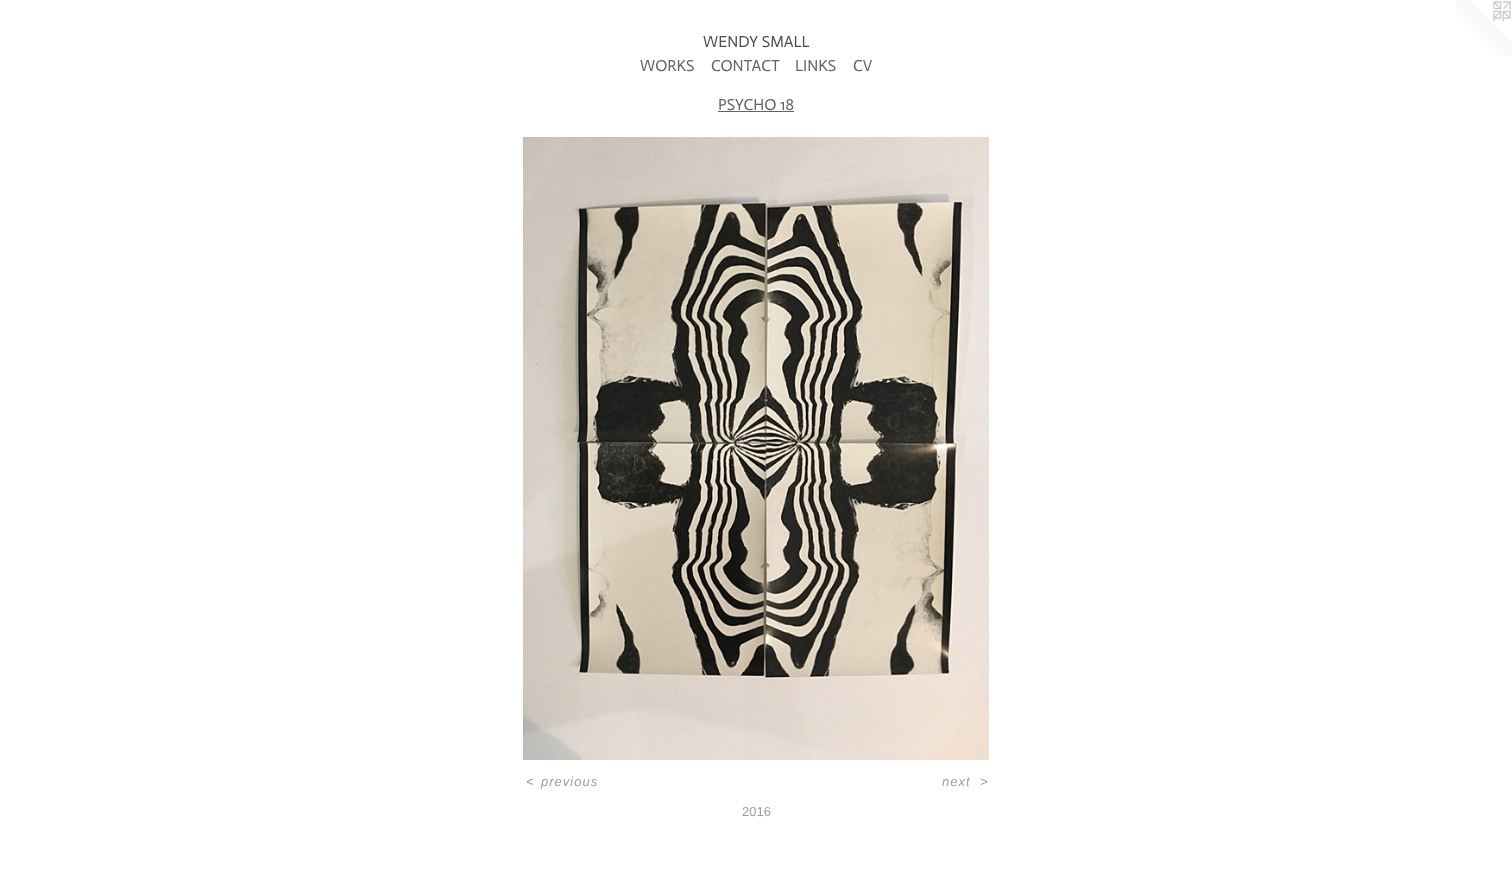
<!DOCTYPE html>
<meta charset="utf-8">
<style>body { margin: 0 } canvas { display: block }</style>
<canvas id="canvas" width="1512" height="889"></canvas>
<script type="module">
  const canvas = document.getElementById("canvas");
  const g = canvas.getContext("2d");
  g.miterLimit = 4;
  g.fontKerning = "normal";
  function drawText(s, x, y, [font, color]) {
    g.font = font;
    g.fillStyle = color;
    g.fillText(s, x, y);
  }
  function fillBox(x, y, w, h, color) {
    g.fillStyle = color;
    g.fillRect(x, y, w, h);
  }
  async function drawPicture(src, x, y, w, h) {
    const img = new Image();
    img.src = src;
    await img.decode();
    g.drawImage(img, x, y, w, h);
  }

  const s1 = ["16px Actor", "#4D4D4D"];
  const s2 = ["16px Actor", "#636363"];
  const s3 = ["italic 13px Liberation Sans", "#9C9C9C"];
  const s4 = ["13px Liberation Sans", "#9C9C9C"];

  fillBox(0, 0, 1512, 889, "#FFFFFF");
  drawText("WENDY SMALL", 703, 47, s1);
  await drawPicture("pic1.png", 1456, 0, 56, 56);
  drawText("WORKS", 640, 71, s2);
  drawText("CONTACT", 711, 71, s2);
  drawText("LINKS", 795, 71, s2);
  drawText("CV", 853, 71, s2);
  drawText("PSYCHO 18", 718, 110, s2);
  fillBox(718, 111, 76, 1, "#636363");
  await drawPicture("pic2.png", 523, 137, 466, 623);
  g.letterSpacing = "1px";
  drawText("<", 526, 786, s3);
  drawText("previous", 541, 786, s3);
  drawText("next", 942, 786, s3);
  drawText(">", 980, 786, s3);
  g.letterSpacing = "0px";
  drawText("2016", 742, 816, s4);
</script>
